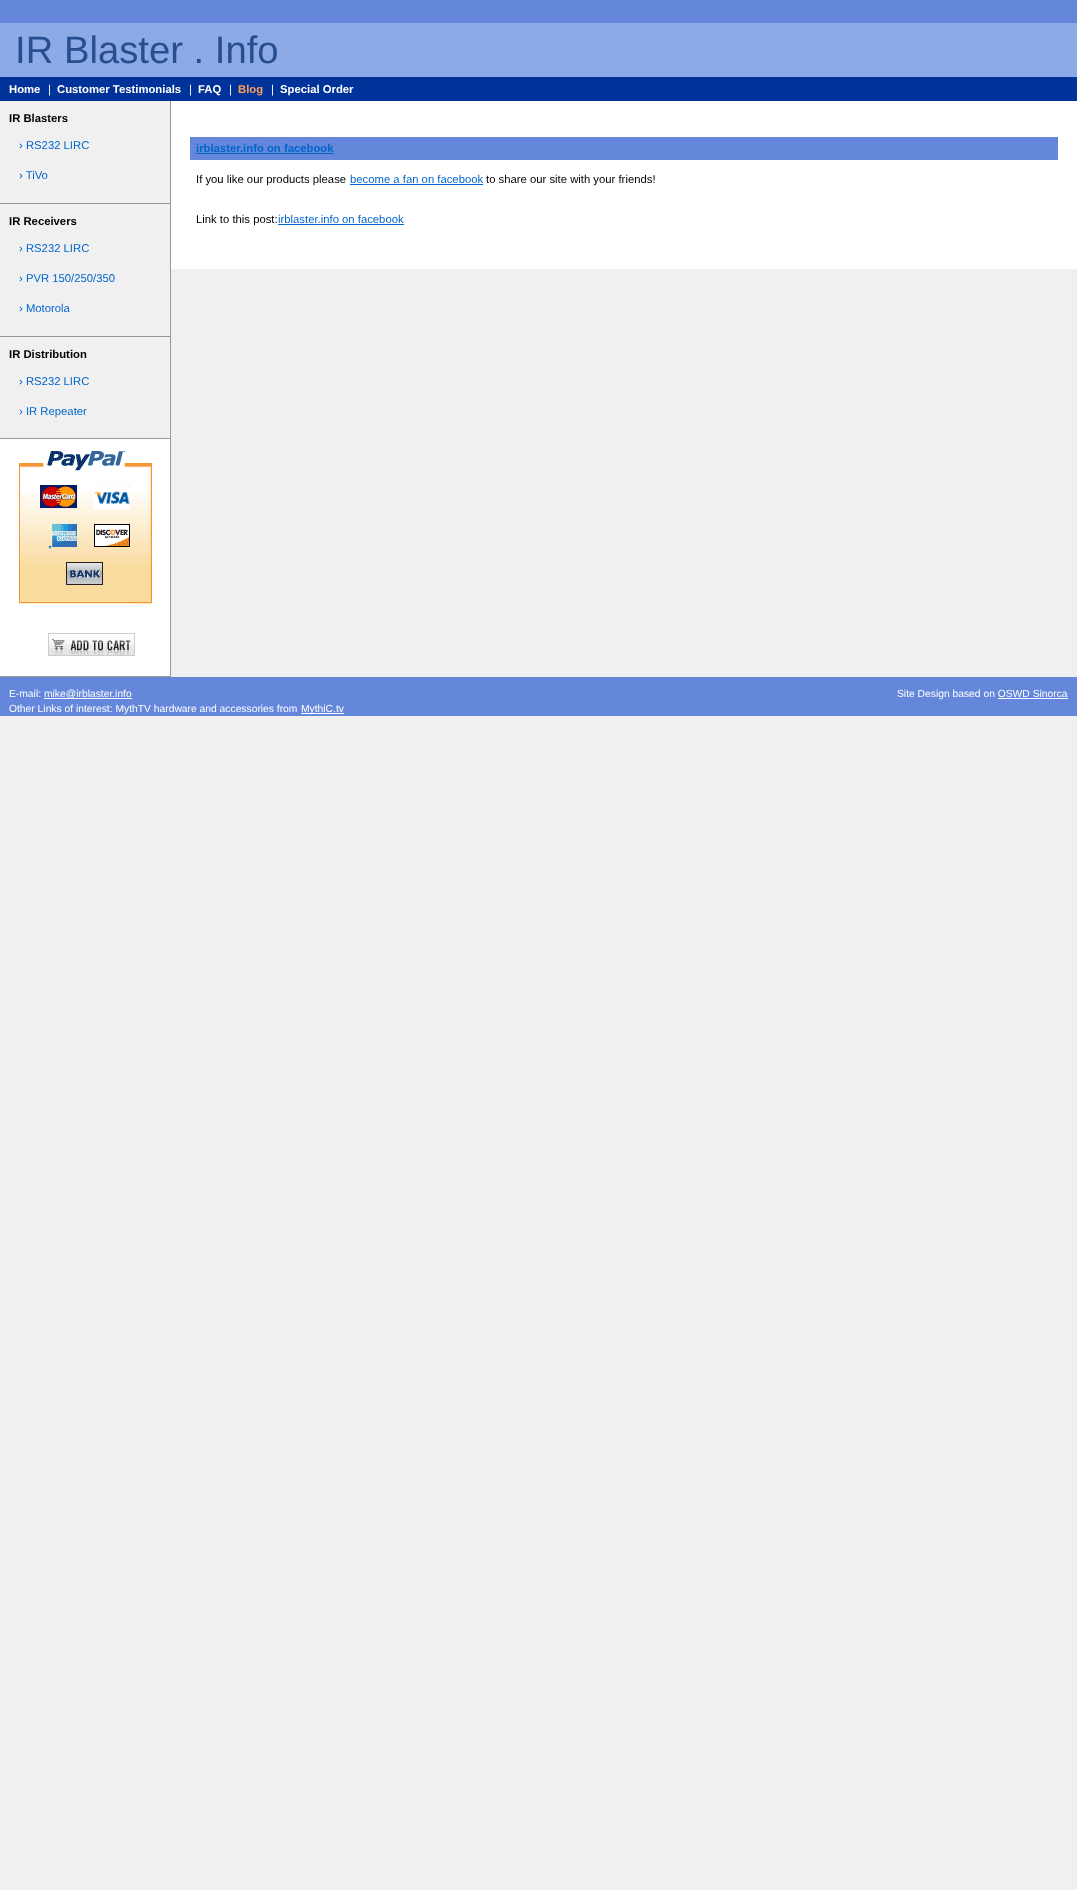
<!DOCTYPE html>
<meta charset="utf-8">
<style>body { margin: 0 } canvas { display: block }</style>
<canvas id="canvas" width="1077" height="1890"></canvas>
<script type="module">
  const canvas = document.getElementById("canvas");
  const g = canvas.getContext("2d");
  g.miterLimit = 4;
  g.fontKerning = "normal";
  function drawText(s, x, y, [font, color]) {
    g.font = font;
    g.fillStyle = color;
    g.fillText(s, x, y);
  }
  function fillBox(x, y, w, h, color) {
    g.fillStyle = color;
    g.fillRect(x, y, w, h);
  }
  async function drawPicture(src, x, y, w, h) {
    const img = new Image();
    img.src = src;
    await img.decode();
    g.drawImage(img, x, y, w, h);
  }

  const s1 = ["38.25px Liberation Sans", "#274E90"];
  const s2 = ["bold 11.3px Liberation Sans", "#FFFFFF"];
  const s3 = ["11.3px Liberation Sans", "#FFFFFF"];
  const s4 = ["bold 11.3px Liberation Sans", "#FDA05B"];
  const s5 = ["bold 11.3px Liberation Sans", "#000000"];
  const s6 = ["11.3px Liberation Sans", "#0066CC"];
  const s7 = ["bold 11.3px Liberation Sans", "#0066CC"];
  const s8 = ["11.3px Liberation Sans", "#000000"];
  const s9 = ["10.3px Liberation Sans", "#FFFFFF"];

  fillBox(0, 0, 1077, 1890, "#F0F0F0");
  fillBox(0, 0, 1077, 23, "#6487DC");
  fillBox(0, 23, 1077, 54, "#8CAAE6");
  drawText("IR Blaster . Info", 15, 63, s1);
  fillBox(0, 77, 1077, 24, "#003399");
  drawText("Home", 9, 93, s2);
  drawText("|", 48, 93, s3);
  drawText("Customer Testimonials", 57, 93, s2);
  drawText("|", 189, 93, s3);
  drawText("FAQ", 198, 93, s2);
  drawText("|", 229, 93, s3);
  drawText("Blog", 238, 93, s4);
  drawText("|", 271, 93, s3);
  drawText("Special Order", 280, 93, s2);
  fillBox(170, 101, 1, 576, "#999999");
  fillBox(0, 203, 170, 1, "#999999");
  drawText("IR Blasters", 9, 122, s5);
  drawText("› RS232 LIRC", 19, 149, s6);
  drawText("› TiVo", 19, 179, s6);
  fillBox(0, 336, 170, 1, "#999999");
  drawText("IR Receivers", 9, 225, s5);
  drawText("› RS232 LIRC", 19, 252, s6);
  drawText("› PVR 150/250/350", 19, 282, s6);
  drawText("› Motorola", 19, 312, s6);
  fillBox(0, 438, 170, 1, "#999999");
  drawText("IR Distribution", 9, 358, s5);
  drawText("› RS232 LIRC", 19, 385, s6);
  drawText("› IR Repeater", 19, 415, s6);
  fillBox(0, 439, 170, 237, "#FFFFFF");
  fillBox(0, 676, 170, 1, "#999999");
  await drawPicture("pic1.png", 19, 451, 133, 154);
  await drawPicture("pic2.png", 48, 633, 87, 23);
  fillBox(171, 101, 906, 168, "#FFFFFF");
  fillBox(190, 137, 868, 23, "#6487DC");
  drawText("irblaster.info on facebook", 196, 152, s7);
  fillBox(196, 153, 138, 1, "#0066CC");
  drawText("If you like our products please", 196, 183, s8);
  drawText("become a fan on facebook", 350, 183, s6);
  fillBox(350, 184, 133, 1, "#0066CC");
  drawText("to share our site with your friends!", 486, 183, s8);
  drawText("Link to this post:", 196, 223, s8);
  drawText("irblaster.info on facebook", 278, 223, s6);
  fillBox(278, 224, 126, 1, "#0066CC");
  fillBox(0, 677, 1077, 39, "#6487DC");
  drawText("E-mail:", 9, 697, s9);
  fillBox(44, 698, 88, 1, "#FFFFFF");
  drawText("mike@irblaster.info", 44, 697, s9);
  drawText("Other Links of interest: MythTV hardware and accessories from", 9, 712, s9);
  fillBox(301, 713, 43, 1, "#FFFFFF");
  drawText("MythiC.tv", 301, 712, s9);
  drawText("Site Design based on OSWD Sinorca", 897, 697, s9);
  fillBox(998, 698, 70, 1, "#FFFFFF");
</script>
